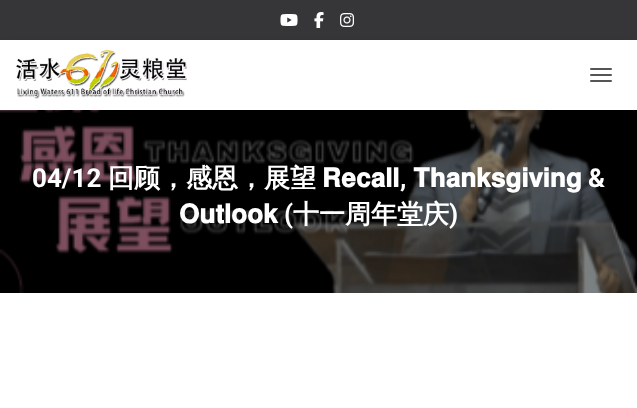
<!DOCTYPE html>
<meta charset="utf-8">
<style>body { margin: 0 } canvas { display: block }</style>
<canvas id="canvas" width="637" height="408"></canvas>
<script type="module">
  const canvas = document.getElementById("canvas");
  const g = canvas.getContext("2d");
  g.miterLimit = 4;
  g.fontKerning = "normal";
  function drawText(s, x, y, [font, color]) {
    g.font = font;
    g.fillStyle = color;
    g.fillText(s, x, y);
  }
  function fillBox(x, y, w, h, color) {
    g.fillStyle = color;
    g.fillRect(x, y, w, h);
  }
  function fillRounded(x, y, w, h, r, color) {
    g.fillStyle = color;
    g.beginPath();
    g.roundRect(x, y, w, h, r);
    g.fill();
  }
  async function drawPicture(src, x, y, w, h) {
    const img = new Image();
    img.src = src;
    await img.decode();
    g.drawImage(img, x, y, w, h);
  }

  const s1 = ["bold 26px Roboto", "#FFFFFF"];
  const s2 = ["bold 26px WenQuanYi Zen Hei", "#FFFFFF"];
  const s3 = ["bold 26px FreeSans", "#FFFFFF"];

  fillBox(0, 0, 637, 408, "#363537");
  await drawPicture("pic1.png", 280, 14, 18, 12);
  await drawPicture("pic2.png", 314, 12, 10, 16);
  await drawPicture("pic3.png", 340, 13, 14, 14);
  await drawPicture("pic5.png", 0, 110, 637, 183);
  g.fillStyle = "rgba(0, 0, 0, 0.42)";
  g.filter = "blur(5px)";
  g.beginPath();
  g.rect(6, 47, 625, 58);
  g.fill();
  g.filter = "none";
  fillBox(0, 40, 637, 70, "#FFFFFF");
  await drawPicture("pic4.png", 16, 50, 171, 49);
  fillRounded(590, 68, 22, 2, 1, "#555555");
  fillRounded(590, 74, 22, 2, 1, "#555555");
  fillRounded(590, 80, 22, 2, 1, "#555555");
  drawText("04/12", 32, 187, s1);
  drawText("回顾，感恩，展望", 108, 187, s2);
  drawText("𝐑𝐞𝐜𝐚𝐥𝐥", 322, 187, s3);
  drawText(",", 400, 187, s1);
  drawText("𝐓𝐡𝐚𝐧𝐤𝐬𝐠𝐢𝐯𝐢𝐧𝐠", 413, 187, s3);
  drawText("&", 588, 187, s1);
  drawText("𝐎𝐮𝐭𝐥𝐨𝐨𝐤", 179, 223, s3);
  drawText("(", 284, 223, s1);
  drawText("十一周年堂庆", 293, 223, s2);
  drawText(")", 449, 223, s1);
  fillBox(0, 293, 637, 115, "#FFFFFF");
</script>
